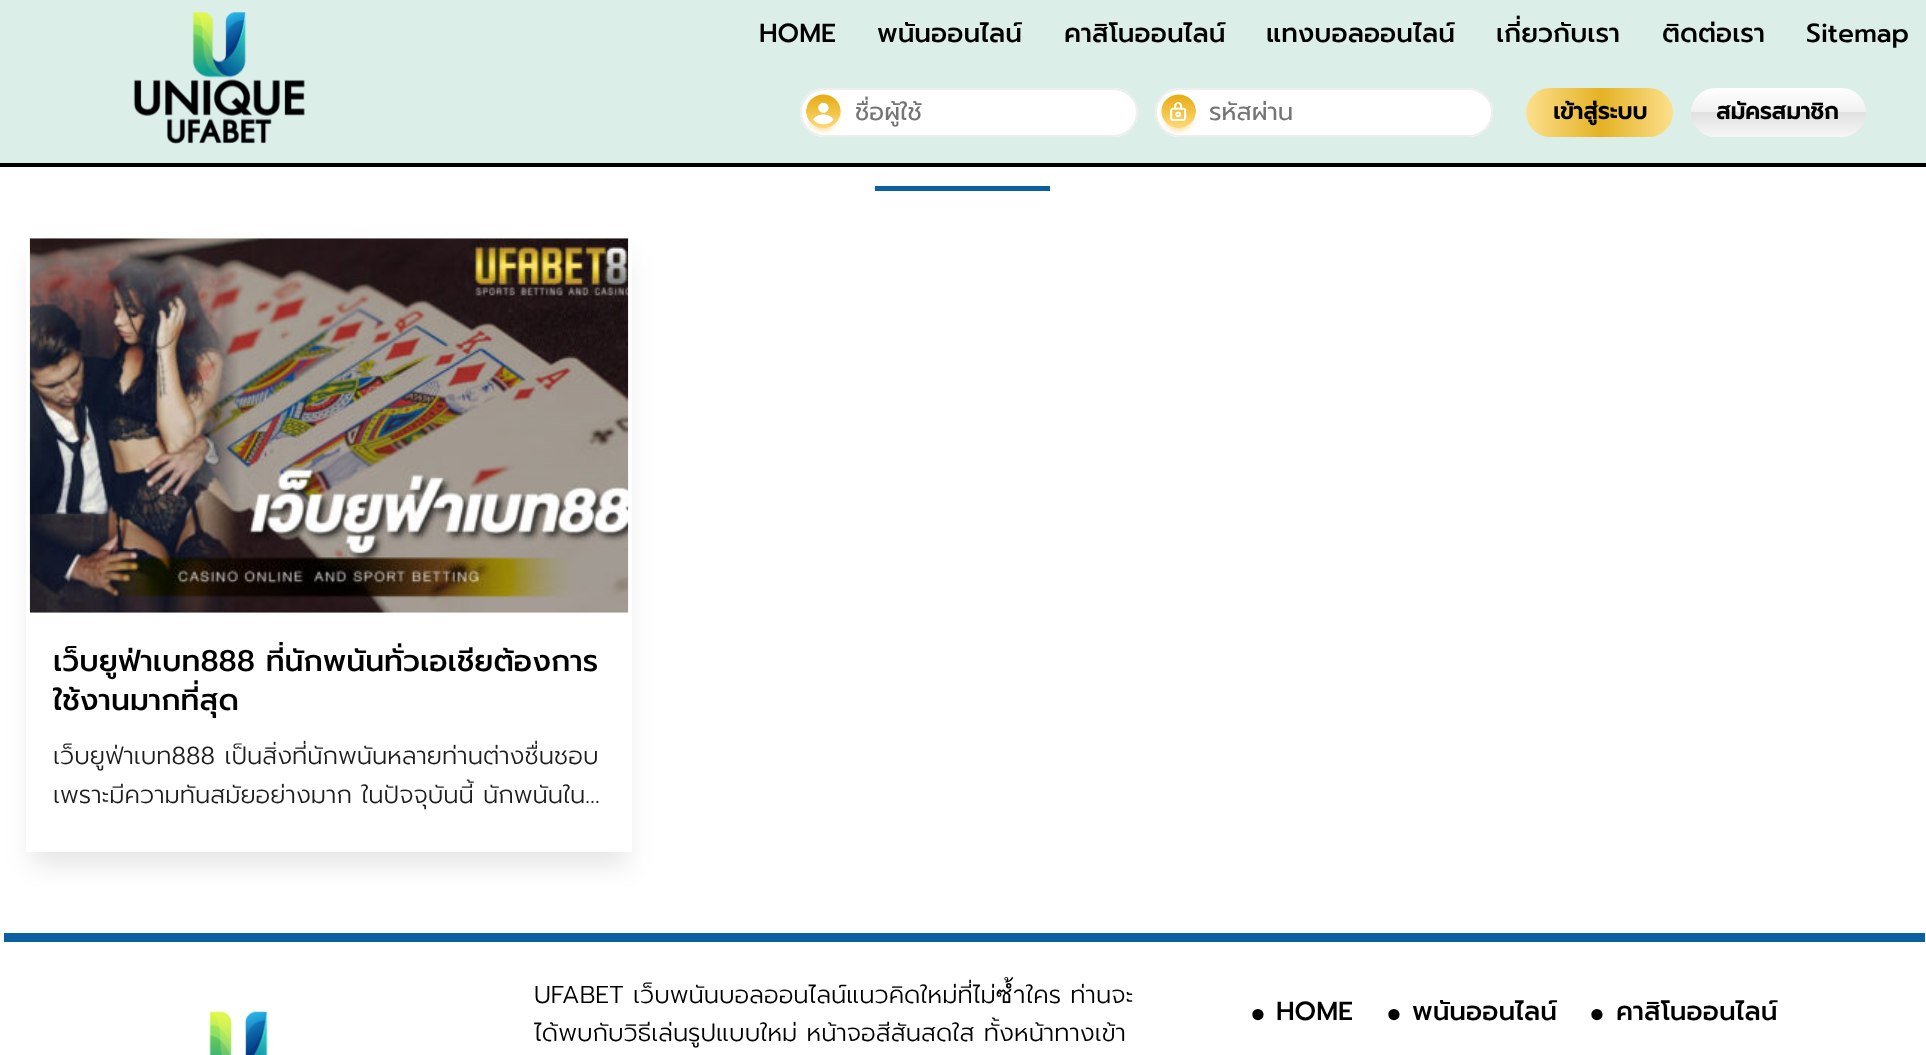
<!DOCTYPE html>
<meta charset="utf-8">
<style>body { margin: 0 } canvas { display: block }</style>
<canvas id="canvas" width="1926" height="1055"></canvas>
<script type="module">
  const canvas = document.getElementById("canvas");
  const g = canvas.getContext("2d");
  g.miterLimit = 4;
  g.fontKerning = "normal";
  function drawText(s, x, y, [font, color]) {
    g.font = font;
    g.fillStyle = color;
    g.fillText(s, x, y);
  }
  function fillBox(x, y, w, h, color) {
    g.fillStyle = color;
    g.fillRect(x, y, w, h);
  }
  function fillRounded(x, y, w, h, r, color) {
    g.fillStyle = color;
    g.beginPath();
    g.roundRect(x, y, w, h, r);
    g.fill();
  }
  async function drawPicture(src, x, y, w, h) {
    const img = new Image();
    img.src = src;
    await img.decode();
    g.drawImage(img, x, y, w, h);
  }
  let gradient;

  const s1 = ["500 26.25px Prompt", "#000000"];
  const s2 = ["24.5px Prompt", "#757575"];
  const s3 = ["bold 22.75px Prompt", "#000000"];
  const s4 = ["500 29.75px Prompt", "#000000"];
  const s5 = ["300 24.5px Prompt", "#1E1E1E"];
  const s6 = ["300 24.5px Prompt", "#000000"];
  const s7 = ["26.25px Liberation Sans", "#000000"];

  fillBox(0, 0, 1926, 1055, "#FFFFFF");
  fillBox(0, 0, 1926, 163, "#DBEEE8");
  fillBox(0, 163, 1926, 4, "#000000");
  await drawPicture("pic1.png", 133, 12, 172, 132);
  drawText("HOME", 759, 42, s1);
  drawText("พนันออนไลน์", 877, 42, s1);
  drawText("คาสิโนออนไลน์", 1064, 42, s1);
  drawText("แทงบอลออนไลน์", 1266, 42, s1);
  drawText("เกี่ยวกับเรา", 1496, 42, s1);
  drawText("ติดต่อเรา", 1662, 42, s1);
  drawText("Sitemap", 1806, 42, s1);
  fillRounded(800, 88, 338, 49, 24.5, "#FFFFFF");
  await drawPicture("pic2.png", 805, 94, 37, 41);
  g.beginPath();
  g.roundRect(801, 89, 336, 47, 23.5);
  g.strokeStyle = "#EEEEEE";
  g.lineWidth = 2;
  g.stroke();
  g.save();
  g.beginPath();
  g.rect(854, 95, 256, 36);
  g.clip();
  drawText("ชื่อผู้ใช้", 855, 120, s2);
  g.restore();
  fillRounded(1155, 88, 338, 49, 24.5, "#FFFFFF");
  await drawPicture("pic3.png", 1161, 94, 36, 41);
  g.beginPath();
  g.roundRect(1156, 89, 336, 47, 23.5);
  g.stroke();
  drawText("รหัสผ่าน", 1209, 120, s2);
  gradient = g.createLinearGradient(1526, 112, 1673, 112);
  gradient.addColorStop(0, "#FDE08D");
  gradient.addColorStop(0.51, "#E4B224");
  gradient.addColorStop(1, "#FDE08D");
  g.fillStyle = gradient;
  g.beginPath();
  g.roundRect(1526, 88, 147, 49, 24.5);
  g.fill();
  drawText("เข้าสู่ระบบ", 1553, 119, s3);
  gradient = g.createLinearGradient(1778, 87, 1778, 137);
  gradient.addColorStop(0, "#FFFFFF");
  gradient.addColorStop(0.5, "#F1F1F1");
  gradient.addColorStop(0.51, "#E1E1E1");
  gradient.addColorStop(1, "#F6F6F6");
  g.fillStyle = gradient;
  g.beginPath();
  g.roundRect(1691, 88, 175, 49, 24.5);
  g.fill();
  drawText("สมัครสมาชิก", 1716, 119, s3);
  fillBox(875, 186, 175, 5, "#0B60A4");
  g.fillStyle = "rgba(0, 0, 0, 0.1)";
  g.filter = "blur(13px)";
  g.beginPath();
  g.rect(32, 257, 595, 608);
  g.fill();
  g.filter = "none";
  fillBox(26, 240, 606, 612, "#FFFFFF");
  await drawPicture("pic4.png", 29, 238, 600, 375);
  g.save();
  g.beginPath();
  g.rect(53, 642, 553, 79);
  g.clip();
  drawText("เว็บยูฟ่าเบท888 ที่นักพนันทั่วเอเชียต้องการ", 53, 671, s4);
  drawText("ใช้งานมากที่สุด", 53, 710, s4);
  g.restore();
  g.save();
  g.beginPath();
  g.rect(53, 739, 553, 78);
  g.clip();
  drawText("เว็บยูฟ่าเบท888 เป็นสิ่งที่นักพนันหลายท่านต่างชื่นชอบ", 53, 764, s5);
  g.restore();
  drawText("เพราะมีความทันสมัยอย่างมาก ในปัจจุบันนี้ นักพนันใน…", 53, 803, s5);
  fillBox(4, 933, 1921, 9, "#0B60A4");
  await drawPicture("pic5.png", 209, 1011, 59, 44);
  drawText("UFABET เว็บพนันบอลออนไลน์แนวคิดใหม่ที่ไม่ซ้ำใคร ท่านจะ", 534, 1003, s6);
  drawText("ได้พบกับวิธีเล่นรูปแบบใหม่ หน้าจอสีสันสดใส ทั้งหน้าทางเข้า", 534, 1041, s6);
  drawText("●", 1250, 1022, s7);
  drawText("HOME", 1276, 1020, s1);
  drawText("●", 1386, 1022, s7);
  drawText("พนันออนไลน์", 1412, 1020, s1);
  drawText("●", 1589, 1022, s7);
  drawText("คาสิโนออนไลน์", 1616, 1020, s1);
</script>
